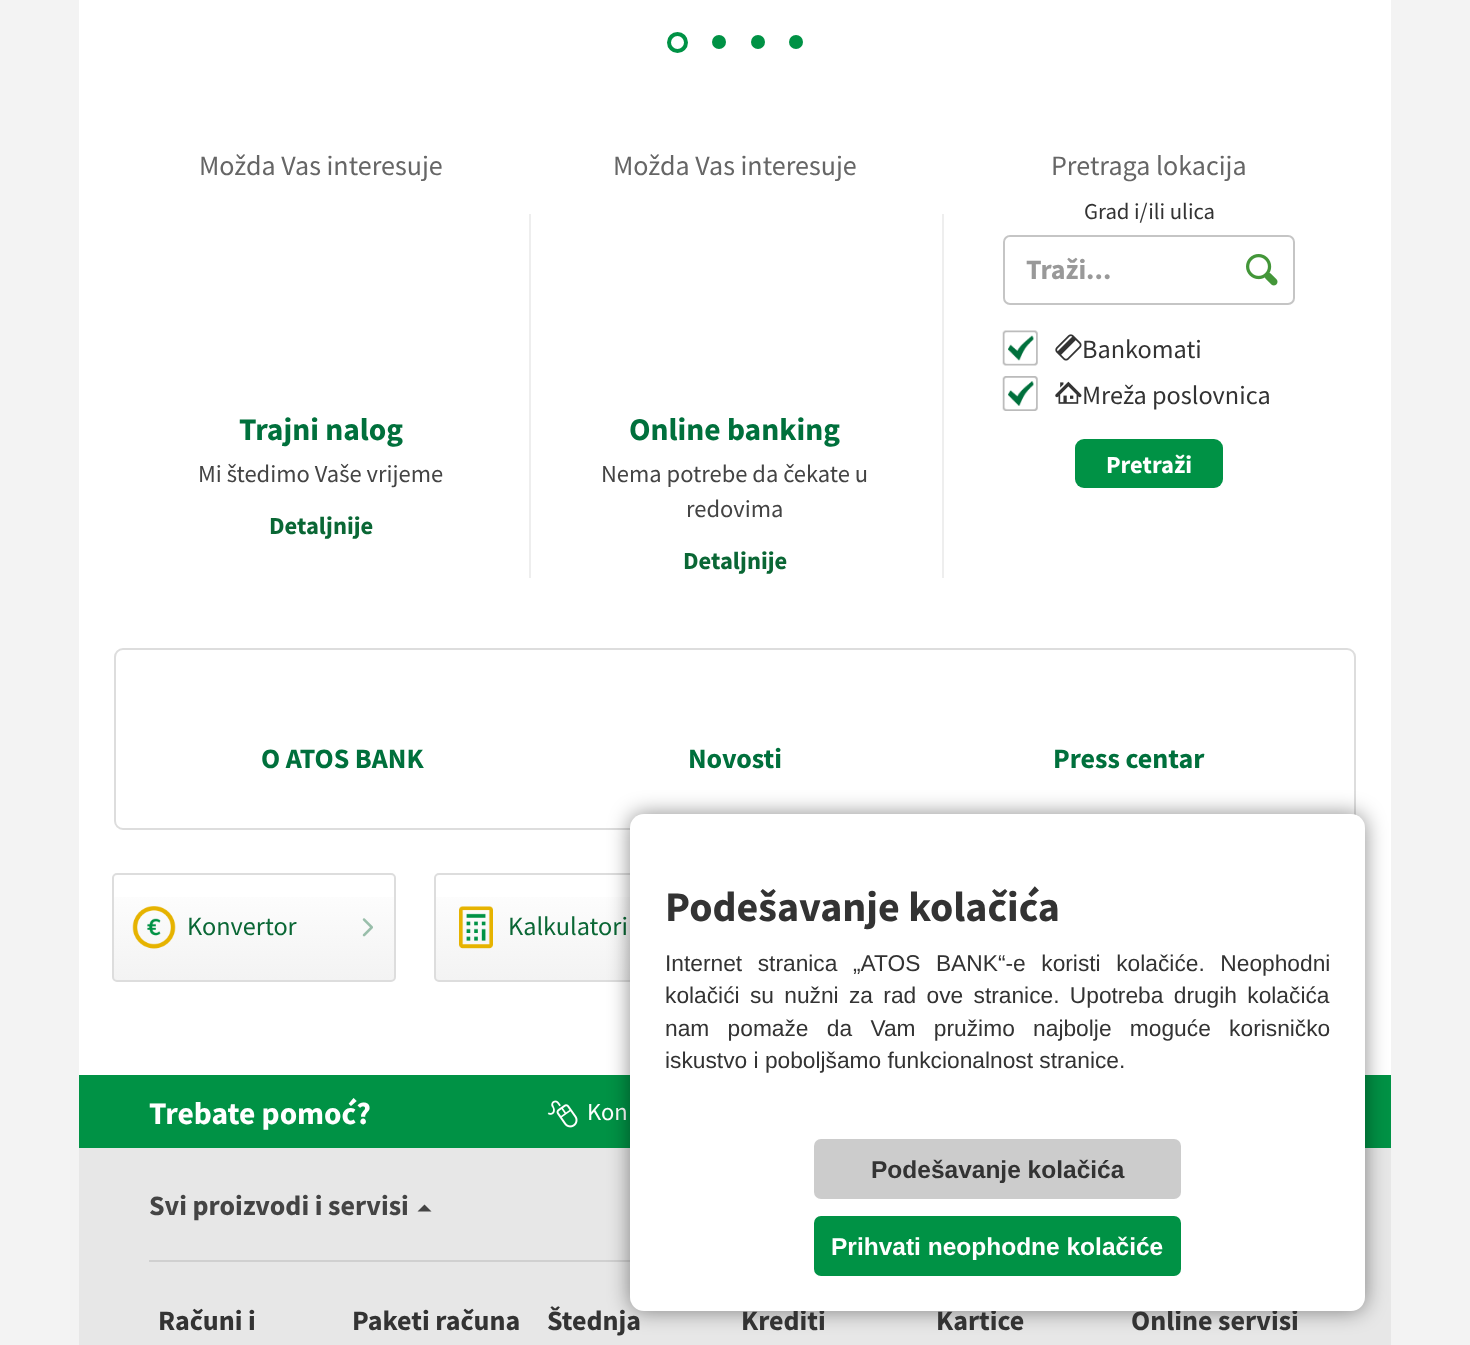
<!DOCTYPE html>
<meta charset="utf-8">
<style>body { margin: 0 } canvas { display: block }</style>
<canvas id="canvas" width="1470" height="1345"></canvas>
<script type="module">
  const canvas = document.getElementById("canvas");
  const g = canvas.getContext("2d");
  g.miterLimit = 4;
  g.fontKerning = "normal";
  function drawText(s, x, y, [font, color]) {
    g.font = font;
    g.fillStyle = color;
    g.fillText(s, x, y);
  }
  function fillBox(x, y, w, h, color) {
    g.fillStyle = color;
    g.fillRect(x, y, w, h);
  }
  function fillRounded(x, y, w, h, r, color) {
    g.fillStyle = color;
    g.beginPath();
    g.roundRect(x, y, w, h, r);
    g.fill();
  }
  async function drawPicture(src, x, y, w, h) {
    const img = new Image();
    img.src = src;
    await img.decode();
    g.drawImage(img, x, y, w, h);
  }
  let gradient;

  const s1 = ["28px Source Sans Pro", "#666666"];
  const s2 = ["bold 31.5px Source Sans Pro", "#00703C"];
  const s3 = ["24.5px Source Sans Pro", "#444444"];
  const s4 = ["bold 24.5px Source Sans Pro", "#0A6735"];
  const s5 = ["22.75px Source Sans Pro", "#333333"];
  const s6 = ["bold 28px Source Sans Pro", "#999999"];
  const s7 = ["26.25px Source Sans Pro", "#333333"];
  const s8 = ["bold 24.5px Source Sans Pro", "#FFFFFF"];
  const s9 = ["bold 28px Source Sans Pro", "#00703C"];
  const s10 = ["26.25px Source Sans Pro", "#0A6735"];
  const s11 = ["bold 31.5px Source Sans Pro", "#FFFFFF"];
  const s12 = ["24.5px Source Sans Pro", "#FFFFFF"];
  const s13 = ["bold 28px Source Sans Pro", "#333333"];
  const s14 = ["bold 42px Source Sans Pro", "#333333"];
  const s15 = ["22.75px Liberation Sans", "#333333"];
  const s16 = ["bold 24.5px Liberation Sans", "#333333"];
  const s17 = ["bold 24.5px Liberation Sans", "#FFFFFF"];
  const s18 = ["bold 28px Source Sans Pro", "#444444"];

  fillBox(0, 0, 1470, 1345, "#F3F3F3");
  fillBox(79, 0, 1312, 1075, "#FFFFFF");
  g.beginPath();
  g.arc(677.5, 42.5, 8.5, 0, Math.PI * 2);
  g.strokeStyle = "#009245";
  g.lineWidth = 4;
  g.stroke();
  g.fillStyle = "#009245";
  g.beginPath();
  g.arc(719, 42, 7, 0, Math.PI * 2);
  g.fill();
  g.beginPath();
  g.arc(758, 42, 7, 0, Math.PI * 2);
  g.fill();
  g.beginPath();
  g.arc(796, 42, 7, 0, Math.PI * 2);
  g.fill();
  drawText("Možda Vas interesuje", 199, 175, s1);
  drawText("Trajni nalog", 239, 440, s2);
  drawText("Mi štedimo Vaše vrijeme", 198, 482, s3);
  drawText("Detaljnije", 269, 534, s4);
  drawText("Možda Vas interesuje", 613, 175, s1);
  fillBox(529, 214, 2, 364, "#EEEEEE");
  drawText("Online banking", 629, 440, s2);
  drawText("Nema potrebe da čekate u", 601, 482, s3);
  drawText("redovima", 686, 517, s3);
  drawText("Detaljnije", 683, 569, s4);
  fillBox(942, 214, 2, 364, "#EEEEEE");
  drawText("Pretraga lokacija", 1051, 175, s1);
  drawText("Grad i/ili ulica", 1084, 219, s5);
  g.beginPath();
  g.roundRect(1004, 236, 290, 68, 6);
  g.strokeStyle = "#C5C5C5";
  g.lineWidth = 2;
  g.stroke();
  drawText("Traži...", 1026, 279, s6);
  await drawPicture("pic1.png", 1246, 254, 32, 32);
  await drawPicture("pic2.png", 1002, 330, 36, 36);
  await drawPicture("pic3.png", 1055, 334, 27, 27);
  drawText("Bankomati", 1082, 358, s7);
  await drawPicture("pic4.png", 1002, 376, 36, 35);
  await drawPicture("pic5.png", 1055, 381, 27, 23);
  drawText("Mreža poslovnica", 1082, 404, s7);
  fillRounded(1075, 439, 148, 49, 9, "#009245");
  drawText("Pretraži", 1106, 473, s8);
  g.beginPath();
  g.roundRect(115, 649, 1240, 180, 8);
  g.strokeStyle = "#DDDDDD";
  g.stroke();
  drawText("O ATOS BANK", 261, 768, s9);
  drawText("Novosti", 688, 768, s9);
  drawText("Press centar", 1053, 768, s9);
  gradient = g.createLinearGradient(254, 875, 254, 980);
  gradient.addColorStop(0, "#FFFFFF");
  gradient.addColorStop(1, "#F3F3F3");
  g.fillStyle = gradient;
  g.fillRect(114, 897, 280, 83);
  g.beginPath();
  g.roundRect(113, 874, 282, 107, 4);
  g.stroke();
  await drawPicture("pic6.png", 132, 906, 44, 43);
  drawText("Konvertor", 187, 935, s10);
  await drawPicture("pic7.png", 362, 918, 11, 19);
  gradient = g.createLinearGradient(575, 875, 575, 980);
  gradient.addColorStop(0, "#FFFFFF");
  gradient.addColorStop(1, "#F3F3F3");
  g.fillStyle = gradient;
  g.fillRect(436, 897, 194, 83);
  g.beginPath();
  g.roundRect(435, 874, 280, 107, 4);
  g.stroke();
  await drawPicture("pic8.png", 459, 906, 34, 43);
  drawText("Kalkulatori", 508, 935, s10);
  fillBox(79, 1075, 1312, 73, "#009245");
  drawText("Trebate pomoć?", 149, 1124, s11);
  await drawPicture("pic9.png", 547, 1100, 31, 28);
  drawText("Kon", 587, 1120, s12);
  fillBox(79, 1148, 1312, 197, "#E7E7E7");
  fillBox(149, 1260, 481, 2, "#D0D0D0");
  g.fillStyle = "rgba(0, 0, 0, 0.45)";
  g.filter = "blur(10.5px)";
  g.beginPath();
  g.roundRect(630, 814, 735, 497, 14);
  g.fill();
  g.filter = "none";
  drawText("Štednja", 547, 1330, s13);
  drawText("Krediti", 741, 1330, s13);
  drawText("Kartice", 936, 1330, s13);
  drawText("Online servisi", 1131, 1330, s13);
  fillRounded(630, 814, 735, 497, 14, "#FFFFFF");
  drawText("Podešavanje kolačića", 665, 921, s14);
  g.wordSpacing = "9.25px";
  drawText("Internet stranica „ATOS BANK“-e koristi kolačiće. Neophodni", 665, 971, s15);
  g.wordSpacing = "4px";
  drawText("kolačići su nužni za rad ove stranice. Upotreba drugih kolačića", 665, 1003, s15);
  g.wordSpacing = "12px";
  drawText("nam pomaže da Vam pružimo najbolje moguće korisničko", 665, 1036, s15);
  g.wordSpacing = "0px";
  drawText("iskustvo i poboljšamo funkcionalnost stranice.", 665, 1068, s15);
  fillRounded(814, 1139, 367, 60, 7, "#CCCCCC");
  drawText("Podešavanje kolačića", 871, 1178, s16);
  fillRounded(814, 1216, 367, 60, 7, "#009245");
  drawText("Prihvati neophodne kolačiće", 831, 1255, s17);
  drawText("Svi proizvodi i servisi", 149, 1215, s18);
  g.beginPath();
  g.moveTo(431.5, 1211.5);
  g.lineTo(417.5, 1211.5);
  g.lineTo(424.5, 1204.5);
  g.closePath();
  g.fill();
  drawText("Računi i", 158, 1330, s13);
  drawText("Paketi računa", 352, 1330, s13);
</script>
